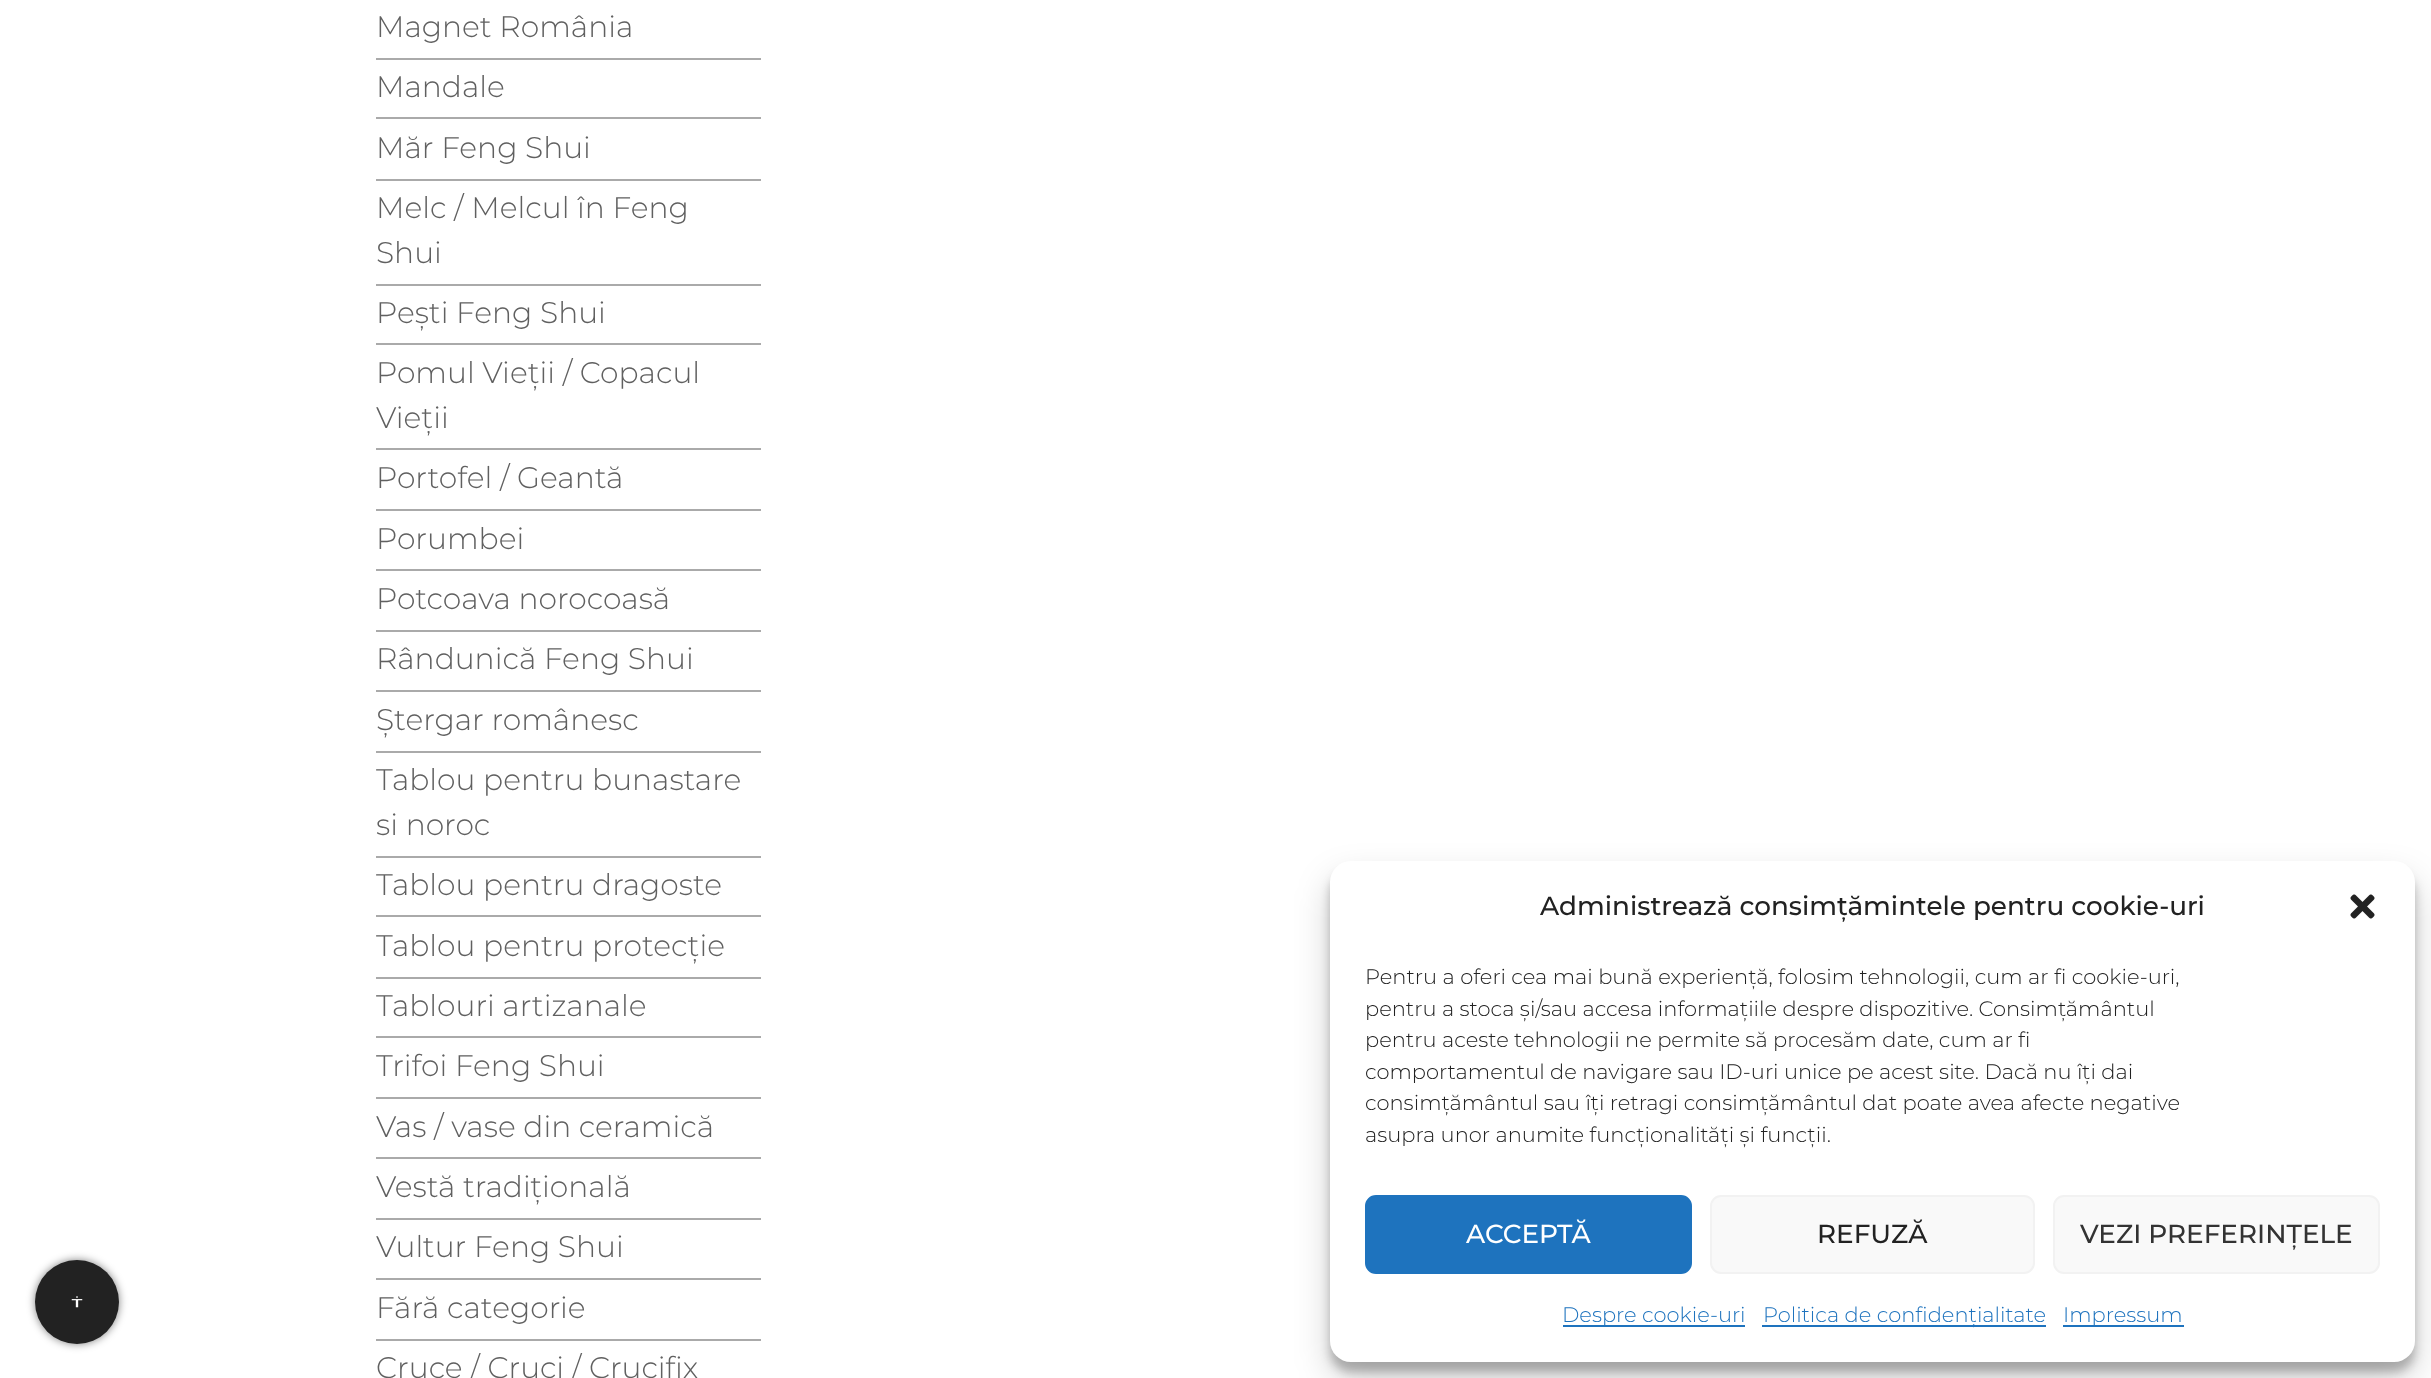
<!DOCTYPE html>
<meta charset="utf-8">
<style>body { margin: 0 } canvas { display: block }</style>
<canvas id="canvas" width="2431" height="1378"></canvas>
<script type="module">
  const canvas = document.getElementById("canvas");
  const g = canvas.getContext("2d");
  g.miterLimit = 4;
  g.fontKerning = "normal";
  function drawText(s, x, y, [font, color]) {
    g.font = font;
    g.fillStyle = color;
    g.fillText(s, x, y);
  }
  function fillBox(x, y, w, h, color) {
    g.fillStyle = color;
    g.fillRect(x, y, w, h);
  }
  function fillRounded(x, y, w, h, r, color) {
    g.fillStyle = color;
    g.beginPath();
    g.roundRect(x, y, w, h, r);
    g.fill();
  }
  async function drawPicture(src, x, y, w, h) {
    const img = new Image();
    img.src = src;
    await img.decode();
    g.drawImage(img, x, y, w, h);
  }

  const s1 = ["300 29.75px Montserrat", "#606060"];
  const s2 = ["500 26.25px Montserrat", "#222222"];
  const s3 = ["300 21px Montserrat", "#222222"];
  const s4 = ["500 26.25px Montserrat", "#FFFFFF"];
  const s5 = ["500 26.25px Montserrat", "#333333"];
  const s6 = ["300 21px Montserrat", "#1E73BE"];

  fillBox(0, 0, 2431, 1378, "#FFFFFF");
  g.fillStyle = "rgba(0, 0, 0, 0.5)";
  g.filter = "blur(4.5px)";
  g.beginPath();
  g.roundRect(35, 1260, 84, 84, 42);
  g.fill();
  g.filter = "none";
  g.fillStyle = "#222222";
  g.beginPath();
  g.arc(77, 1302, 42, 0, Math.PI * 2);
  g.fill();
  await drawPicture("pic1.png", 71, 1296, 12, 12);
  fillBox(376, 58, 385, 2, "#AAAAAA");
  drawText("Magnet România", 376, 37, s1);
  fillBox(376, 117, 385, 2, "#AAAAAA");
  drawText("Mandale", 376, 97, s1);
  fillBox(376, 179, 385, 2, "#AAAAAA");
  drawText("Măr Feng Shui", 376, 158, s1);
  fillBox(376, 284, 385, 2, "#AAAAAA");
  drawText("Melc / Melcul în Feng", 376, 218, s1);
  drawText("Shui", 376, 263, s1);
  fillBox(376, 343, 385, 2, "#AAAAAA");
  drawText("Pești Feng Shui", 376, 323, s1);
  fillBox(376, 448, 385, 2, "#AAAAAA");
  drawText("Pomul Vieții / Copacul", 376, 383, s1);
  drawText("Vieții", 376, 428, s1);
  fillBox(376, 509, 385, 2, "#AAAAAA");
  drawText("Portofel / Geantă", 376, 488, s1);
  fillBox(376, 569, 385, 2, "#AAAAAA");
  drawText("Porumbei", 376, 549, s1);
  fillBox(376, 630, 385, 2, "#AAAAAA");
  drawText("Potcoava norocoasă", 376, 609, s1);
  fillBox(376, 690, 385, 2, "#AAAAAA");
  drawText("Rândunică Feng Shui", 376, 669, s1);
  fillBox(376, 751, 385, 2, "#AAAAAA");
  drawText("Ștergar românesc", 376, 730, s1);
  fillBox(376, 856, 385, 2, "#AAAAAA");
  drawText("Tablou pentru bunastare", 376, 790, s1);
  drawText("si noroc", 376, 835, s1);
  fillBox(376, 915, 385, 2, "#AAAAAA");
  drawText("Tablou pentru dragoste", 376, 895, s1);
  fillBox(376, 977, 385, 2, "#AAAAAA");
  drawText("Tablou pentru protecție", 376, 956, s1);
  fillBox(376, 1036, 385, 2, "#AAAAAA");
  drawText("Tablouri artizanale", 376, 1016, s1);
  fillBox(376, 1097, 385, 2, "#AAAAAA");
  drawText("Trifoi Feng Shui", 376, 1076, s1);
  fillBox(376, 1157, 385, 2, "#AAAAAA");
  drawText("Vas / vase din ceramică", 376, 1137, s1);
  fillBox(376, 1218, 385, 2, "#AAAAAA");
  drawText("Vestă tradițională", 376, 1197, s1);
  fillBox(376, 1278, 385, 2, "#AAAAAA");
  drawText("Vultur Feng Shui", 376, 1257, s1);
  fillBox(376, 1339, 385, 2, "#AAAAAA");
  drawText("Fără categorie", 376, 1318, s1);
  drawText("Cruce / Cruci / Crucifix", 376, 1378, s1);
  g.fillStyle = "rgba(0, 0, 0, 0.23)";
  g.filter = "blur(5px)";
  g.beginPath();
  g.roundRect(1330, 872, 1085, 500, 21);
  g.fill();
  g.filter = "none";
  g.fillStyle = "rgba(0, 0, 0, 0.19)";
  g.filter = "blur(17.5px)";
  g.beginPath();
  g.roundRect(1330, 879, 1085, 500, 21);
  g.fill();
  g.filter = "none";
  fillRounded(1330, 861, 1085, 501, 21, "#FFFFFF");
  drawText("Administrează consimțămintele pentru cookie-uri", 1540, 915, s2);
  await drawPicture("pic2.png", 2350, 894, 25, 25);
  drawText("Pentru a oferi cea mai bună experiență, folosim tehnologii, cum ar fi cookie-uri,", 1365, 984, s3);
  drawText("pentru a stoca și/sau accesa informațiile despre dispozitive. Consimțământul", 1365, 1016, s3);
  drawText("pentru aceste tehnologii ne permite să procesăm date, cum ar fi", 1365, 1047, s3);
  drawText("comportamentul de navigare sau ID-uri unice pe acest site. Dacă nu îți dai", 1365, 1079, s3);
  drawText("consimțământul sau îți retragi consimțământul dat poate avea afecte negative", 1365, 1110, s3);
  drawText("asupra unor anumite funcționalități și funcții.", 1365, 1142, s3);
  g.fillStyle = "#1E73BE";
  g.beginPath();
  g.roundRect(1366, 1196, 325, 77, 10);
  g.fill();
  g.strokeStyle = "#1E73BE";
  g.lineWidth = 2;
  g.stroke();
  drawText("ACCEPTĂ", 1466, 1243, s4);
  g.fillStyle = "#F9F9F9";
  g.beginPath();
  g.roundRect(1711, 1196, 323, 77, 10);
  g.fill();
  g.strokeStyle = "#F2F2F2";
  g.stroke();
  drawText("REFUZĂ", 1817, 1243, s2);
  g.fillStyle = "#F9F9F9";
  g.beginPath();
  g.roundRect(2054, 1196, 325, 77, 10);
  g.fill();
  g.stroke();
  drawText("VEZI PREFERINȚELE", 2080, 1243, s5);
  fillBox(1563, 1325, 182, 2, "#1E73BE");
  drawText("Despre cookie-uri", 1562, 1322, s6);
  fillBox(1762, 1325, 284, 2, "#1E73BE");
  drawText("Politica de confidențialitate", 1763, 1322, s6);
  fillBox(2063, 1325, 121, 2, "#1E73BE");
  drawText("Impressum", 2063, 1322, s6);
</script>
